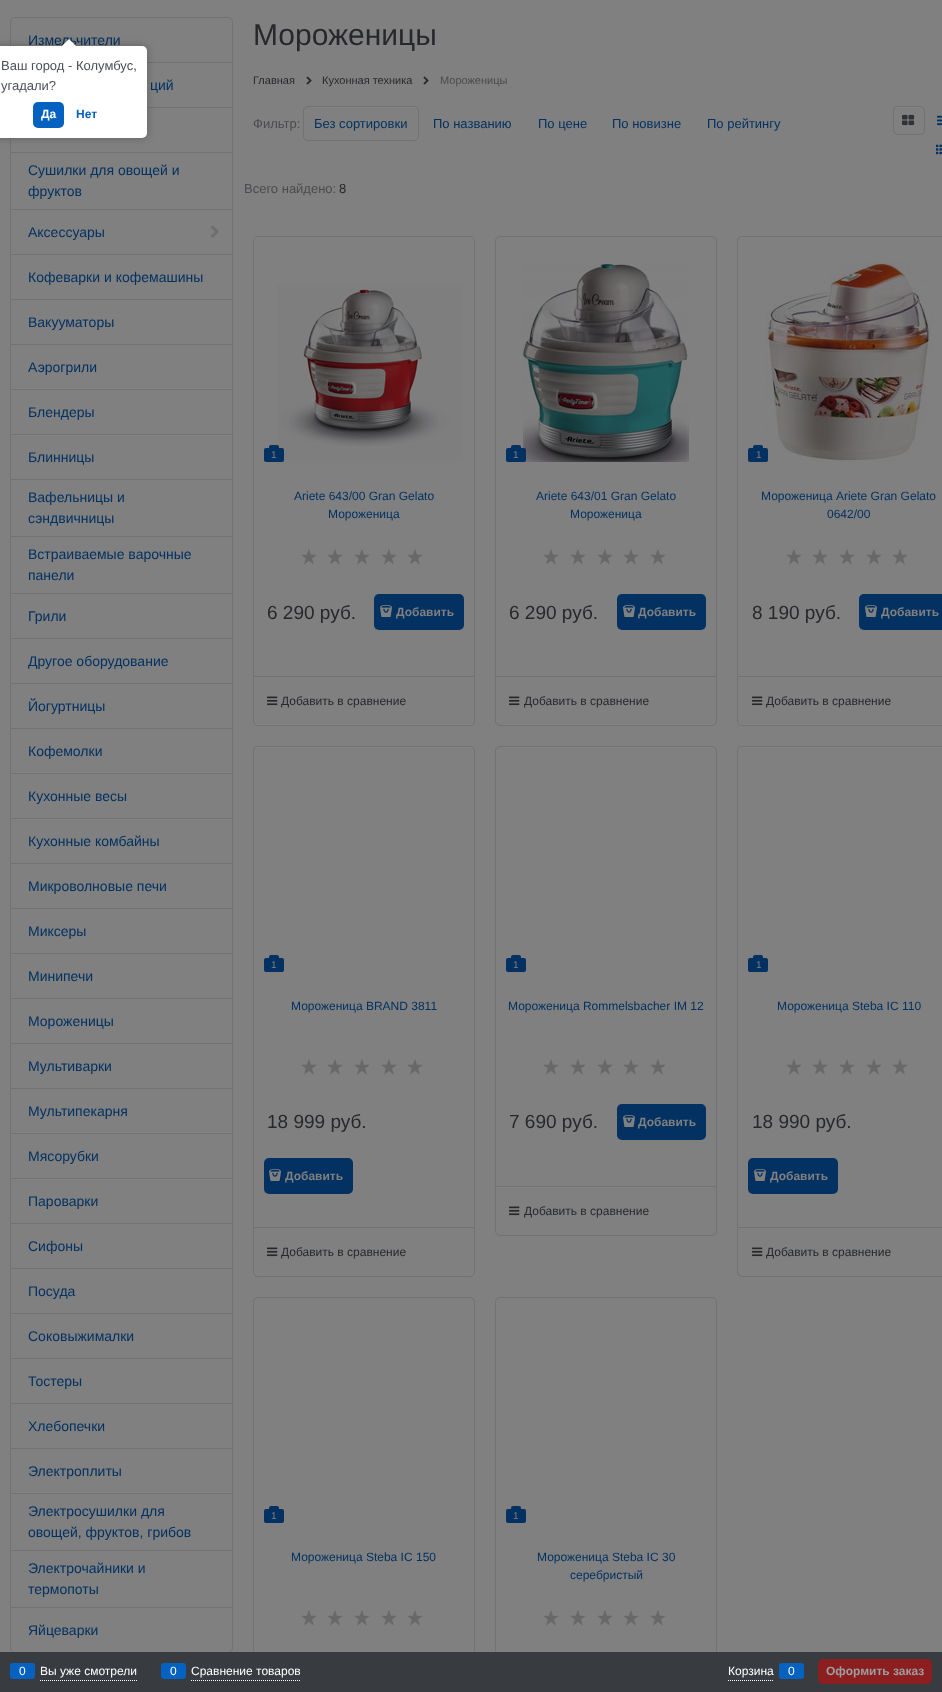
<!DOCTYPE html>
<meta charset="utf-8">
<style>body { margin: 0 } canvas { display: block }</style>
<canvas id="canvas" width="942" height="1692"></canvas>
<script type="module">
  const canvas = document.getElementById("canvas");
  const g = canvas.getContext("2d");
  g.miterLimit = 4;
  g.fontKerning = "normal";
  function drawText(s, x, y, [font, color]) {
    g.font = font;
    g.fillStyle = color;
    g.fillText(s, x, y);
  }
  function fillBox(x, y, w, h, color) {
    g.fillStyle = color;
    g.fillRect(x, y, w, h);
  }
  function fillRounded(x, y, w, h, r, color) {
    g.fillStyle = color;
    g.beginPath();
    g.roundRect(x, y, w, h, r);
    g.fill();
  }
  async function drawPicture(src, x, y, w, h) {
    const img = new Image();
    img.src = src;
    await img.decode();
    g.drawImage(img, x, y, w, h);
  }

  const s1 = ["14px Liberation Sans", "#033161"];
  const s2 = ["30px Liberation Sans", "#26282C"];
  const s3 = ["11px Liberation Sans", "#26282C"];
  const s4 = ["11px Liberation Sans", "#4A4B4E"];
  const s5 = ["13px Liberation Sans", "#4A4B4E"];
  const s6 = ["13px Liberation Sans", "#033161"];
  const s7 = ["13px Liberation Sans", "#26282C"];
  const s8 = ["10px Liberation Sans", "#808080"];
  const s9 = ["12px Liberation Sans", "#033161"];
  const s10 = ["19px Liberation Sans", "#26282C"];
  const s11 = ["bold 12px Liberation Sans", "#808080"];
  const s12 = ["12px Liberation Sans", "#26282C"];
  const s13 = ["12px Liberation Sans", "#FFFFFF"];
  const s14 = ["bold 12px Liberation Sans", "#9C9EA0"];
  const s15 = ["13px Liberation Sans", "#4B4F58"];
  const s16 = ["bold 12px Liberation Sans", "#FFFFFF"];
  const s17 = ["bold 12px Liberation Sans", "#0662C1"];

  fillBox(0, 0, 942, 1692, "#808080");
  g.beginPath();
  g.roundRect(10.5, 17.5, 222, 1635, 4.5);
  g.strokeStyle = "#717272";
  g.stroke();
  fillBox(147, 62, 85, 1, "#717272");
  drawText("Измельчители", 28, 45, s1);
  fillBox(147, 107, 85, 1, "#717272");
  drawText("ций", 150, 90, s1);
  fillBox(11, 152, 221, 1, "#717272");
  fillBox(11, 209, 221, 1, "#717272");
  drawText("Сушилки для овощей и", 28, 175, s1);
  drawText("фруктов", 28, 196, s1);
  fillBox(11, 254, 221, 1, "#717272");
  drawText("Аксессуары", 28, 237, s1);
  await drawPicture("pic1.png", 210, 225, 9, 13);
  fillBox(11, 299, 221, 1, "#717272");
  drawText("Кофеварки и кофемашины", 28, 282, s1);
  fillBox(11, 344, 221, 1, "#717272");
  drawText("Вакууматоры", 28, 327, s1);
  fillBox(11, 389, 221, 1, "#717272");
  drawText("Аэрогрили", 28, 372, s1);
  fillBox(11, 434, 221, 1, "#717272");
  drawText("Блендеры", 28, 417, s1);
  fillBox(11, 479, 221, 1, "#717272");
  drawText("Блинницы", 28, 462, s1);
  fillBox(11, 536, 221, 1, "#717272");
  drawText("Вафельницы и", 28, 502, s1);
  drawText("сэндвичницы", 28, 523, s1);
  fillBox(11, 593, 221, 1, "#717272");
  drawText("Встраиваемые варочные", 28, 559, s1);
  drawText("панели", 28, 580, s1);
  fillBox(11, 638, 221, 1, "#717272");
  drawText("Грили", 28, 621, s1);
  fillBox(11, 683, 221, 1, "#717272");
  drawText("Другое оборудование", 28, 666, s1);
  fillBox(11, 728, 221, 1, "#717272");
  drawText("Йогуртницы", 28, 711, s1);
  fillBox(11, 773, 221, 1, "#717272");
  drawText("Кофемолки", 28, 756, s1);
  fillBox(11, 818, 221, 1, "#717272");
  drawText("Кухонные весы", 28, 801, s1);
  fillBox(11, 863, 221, 1, "#717272");
  drawText("Кухонные комбайны", 28, 846, s1);
  fillBox(11, 908, 221, 1, "#717272");
  drawText("Микроволновые печи", 28, 891, s1);
  fillBox(11, 953, 221, 1, "#717272");
  drawText("Миксеры", 28, 936, s1);
  fillBox(11, 998, 221, 1, "#717272");
  drawText("Минипечи", 28, 981, s1);
  fillBox(11, 1043, 221, 1, "#717272");
  drawText("Мороженицы", 28, 1026, s1);
  fillBox(11, 1088, 221, 1, "#717272");
  drawText("Мультиварки", 28, 1071, s1);
  fillBox(11, 1133, 221, 1, "#717272");
  drawText("Мультипекарня", 28, 1116, s1);
  fillBox(11, 1178, 221, 1, "#717272");
  drawText("Мясорубки", 28, 1161, s1);
  fillBox(11, 1223, 221, 1, "#717272");
  drawText("Пароварки", 28, 1206, s1);
  fillBox(11, 1268, 221, 1, "#717272");
  drawText("Сифоны", 28, 1251, s1);
  fillBox(11, 1313, 221, 1, "#717272");
  drawText("Посуда", 28, 1296, s1);
  fillBox(11, 1358, 221, 1, "#717272");
  drawText("Соковыжималки", 28, 1341, s1);
  fillBox(11, 1403, 221, 1, "#717272");
  drawText("Тостеры", 28, 1386, s1);
  fillBox(11, 1448, 221, 1, "#717272");
  drawText("Хлебопечки", 28, 1431, s1);
  fillBox(11, 1493, 221, 1, "#717272");
  drawText("Электроплиты", 28, 1476, s1);
  fillBox(11, 1550, 221, 1, "#717272");
  drawText("Электросушилки для", 28, 1516, s1);
  drawText("овощей, фруктов, грибов", 28, 1537, s1);
  fillBox(11, 1607, 221, 1, "#717272");
  drawText("Электрочайники и", 28, 1573, s1);
  drawText("термопоты", 28, 1594, s1);
  drawText("Яйцеварки", 28, 1635, s1);
  drawText("Мороженицы", 253, 45, s2);
  drawText("Главная", 253, 84, s3);
  await drawPicture("pic2.png", 306, 76, 6, 9);
  drawText("Кухонная техника", 322, 84, s3);
  await drawPicture("pic2.png", 423, 76, 6, 9);
  drawText("Мороженицы", 440, 84, s4);
  drawText("Фильтр:", 253, 128, s5);
  g.beginPath();
  g.roundRect(303.5, 106.5, 115, 34, 4.5);
  g.stroke();
  drawText("Без сортировки", 314, 128, s6);
  drawText("По названию", 433, 128, s6);
  drawText("По цене", 538, 128, s6);
  drawText("По новизне", 612, 128, s6);
  drawText("По рейтингу", 707, 128, s6);
  drawText("Всего найдено:", 244, 193, s5);
  drawText("8", 339, 193, s7);
  g.beginPath();
  g.roundRect(893.5, 106.5, 31, 28, 4.5);
  g.stroke();
  await drawPicture("pic3.png", 902, 114, 13, 12);
  await drawPicture("pic4.png", 937, 115, 5, 11);
  await drawPicture("pic5.png", 936, 144, 6, 11);
  g.beginPath();
  g.roundRect(253.5, 236.5, 221, 489, 4.5);
  g.stroke();
  await drawPicture("pic6.png", 277, 285, 187, 177);
  fillRounded(264, 448, 20, 14, 2, "#033161");
  g.beginPath();
  g.roundRect(269, 445, 10, 3, [2, 2, 0, 0]);
  g.fill();
  drawText("1", 271, 458, s8);
  drawText("Ariete 643/00 Gran Gelato", 294, 500, s9);
  drawText("Мороженица", 328, 518, s9);
  await drawPicture("pic7.png", 301, 549, 16, 16);
  await drawPicture("pic7.png", 327, 549, 16, 16);
  await drawPicture("pic7.png", 354, 549, 16, 16);
  await drawPicture("pic7.png", 381, 549, 16, 16);
  await drawPicture("pic7.png", 407, 549, 16, 16);
  drawText("6 290 руб.", 267, 619, s10);
  fillRounded(374, 594, 90, 36, 5, "#033161");
  await drawPicture("pic8.png", 380, 605, 12, 12);
  drawText("Добавить", 396, 616, s11);
  fillBox(254, 676, 220, 1, "#717272");
  await drawPicture("pic9.png", 267, 696, 11, 10);
  drawText("Добавить в сравнение", 281, 705, s12);
  g.beginPath();
  g.roundRect(495.5, 236.5, 221, 489, 4.5);
  g.stroke();
  await drawPicture("pic10.png", 523, 264, 166, 198);
  fillRounded(506, 448, 20, 14, 2, "#033161");
  g.beginPath();
  g.roundRect(511, 445, 10, 3, [2, 2, 0, 0]);
  g.fill();
  drawText("1", 513, 458, s8);
  drawText("Ariete 643/01 Gran Gelato", 536, 500, s9);
  drawText("Мороженица", 570, 518, s9);
  await drawPicture("pic7.png", 543, 549, 16, 16);
  await drawPicture("pic7.png", 570, 549, 16, 16);
  await drawPicture("pic7.png", 597, 549, 16, 16);
  await drawPicture("pic7.png", 623, 549, 16, 16);
  await drawPicture("pic7.png", 650, 549, 16, 16);
  drawText("6 290 руб.", 509, 619, s10);
  fillRounded(617, 594, 89, 36, 5, "#033161");
  await drawPicture("pic8.png", 623, 605, 12, 12);
  drawText("Добавить", 638, 616, s11);
  fillBox(496, 676, 220, 1, "#717272");
  await drawPicture("pic9.png", 509, 696, 11, 10);
  drawText("Добавить в сравнение", 524, 705, s12);
  g.beginPath();
  g.roundRect(737.5, 236.5, 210, 489, 4.5);
  g.stroke();
  await drawPicture("pic11.png", 766, 262, 166, 200);
  fillRounded(748, 448, 20, 14, 2, "#033161");
  g.beginPath();
  g.roundRect(753, 445, 10, 3, [2, 2, 0, 0]);
  g.fill();
  drawText("1", 756, 458, s8);
  drawText("Мороженица Ariete Gran Gelato", 761, 500, s9);
  drawText("0642/00", 827, 518, s9);
  await drawPicture("pic7.png", 786, 549, 16, 16);
  await drawPicture("pic7.png", 812, 549, 16, 16);
  await drawPicture("pic7.png", 839, 549, 16, 16);
  await drawPicture("pic7.png", 866, 549, 16, 16);
  await drawPicture("pic7.png", 892, 549, 16, 16);
  drawText("8 190 руб.", 752, 619, s10);
  fillRounded(859, 594, 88, 36, 5, "#033161");
  await drawPicture("pic8.png", 865, 605, 12, 12);
  drawText("Добавить", 881, 616, s11);
  fillBox(738, 676, 204, 1, "#717272");
  await drawPicture("pic9.png", 752, 696, 11, 10);
  drawText("Добавить в сравнение", 766, 705, s12);
  g.beginPath();
  g.roundRect(253.5, 746.5, 221, 530, 4.5);
  g.stroke();
  fillRounded(264, 958, 20, 14, 2, "#033161");
  g.beginPath();
  g.roundRect(269, 955, 10, 3, [2, 2, 0, 0]);
  g.fill();
  drawText("1", 271, 968, s8);
  drawText("Мороженица BRAND 3811", 291, 1010, s9);
  await drawPicture("pic7.png", 301, 1059, 16, 16);
  await drawPicture("pic7.png", 327, 1059, 16, 16);
  await drawPicture("pic7.png", 354, 1059, 16, 16);
  await drawPicture("pic7.png", 381, 1059, 16, 16);
  await drawPicture("pic7.png", 407, 1059, 16, 16);
  drawText("18 999 руб.", 267, 1128, s10);
  fillRounded(264, 1158, 89, 36, 5, "#033161");
  await drawPicture("pic8.png", 269, 1169, 12, 12);
  drawText("Добавить", 285, 1180, s11);
  fillBox(254, 1227, 220, 1, "#717272");
  await drawPicture("pic9.png", 267, 1247, 11, 10);
  drawText("Добавить в сравнение", 281, 1256, s12);
  g.beginPath();
  g.roundRect(495.5, 746.5, 221, 489, 4.5);
  g.stroke();
  fillRounded(506, 958, 20, 14, 2, "#033161");
  g.beginPath();
  g.roundRect(511, 955, 10, 3, [2, 2, 0, 0]);
  g.fill();
  drawText("1", 513, 968, s8);
  drawText("Мороженица Rommelsbacher IM 12", 508, 1010, s9);
  await drawPicture("pic7.png", 543, 1059, 16, 16);
  await drawPicture("pic7.png", 570, 1059, 16, 16);
  await drawPicture("pic7.png", 597, 1059, 16, 16);
  await drawPicture("pic7.png", 623, 1059, 16, 16);
  await drawPicture("pic7.png", 650, 1059, 16, 16);
  drawText("7 690 руб.", 509, 1128, s10);
  fillRounded(617, 1104, 89, 36, 5, "#033161");
  await drawPicture("pic8.png", 623, 1115, 12, 12);
  drawText("Добавить", 638, 1126, s11);
  fillBox(496, 1186, 220, 1, "#717272");
  await drawPicture("pic9.png", 509, 1206, 11, 10);
  drawText("Добавить в сравнение", 524, 1215, s12);
  g.beginPath();
  g.roundRect(737.5, 746.5, 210, 530, 4.5);
  g.stroke();
  fillRounded(748, 958, 20, 14, 2, "#033161");
  g.beginPath();
  g.roundRect(753, 955, 10, 3, [2, 2, 0, 0]);
  g.fill();
  drawText("1", 756, 968, s8);
  drawText("Мороженица Steba IC 110", 777, 1010, s9);
  await drawPicture("pic7.png", 786, 1059, 16, 16);
  await drawPicture("pic7.png", 812, 1059, 16, 16);
  await drawPicture("pic7.png", 839, 1059, 16, 16);
  await drawPicture("pic7.png", 866, 1059, 16, 16);
  await drawPicture("pic7.png", 892, 1059, 16, 16);
  drawText("18 990 руб.", 752, 1128, s10);
  fillRounded(748, 1158, 90, 36, 5, "#033161");
  await drawPicture("pic8.png", 754, 1169, 12, 12);
  drawText("Добавить", 770, 1180, s11);
  fillBox(738, 1227, 204, 1, "#717272");
  await drawPicture("pic9.png", 752, 1247, 11, 10);
  drawText("Добавить в сравнение", 766, 1256, s12);
  g.beginPath();
  g.roundRect(253.5, 1297.5, 221, 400, 4.5);
  g.stroke();
  fillRounded(264, 1509, 20, 14, 2, "#033161");
  g.beginPath();
  g.roundRect(269, 1506, 10, 3, [2, 2, 0, 0]);
  g.fill();
  drawText("1", 271, 1519, s8);
  drawText("Мороженица Steba IC 150", 291, 1561, s9);
  await drawPicture("pic7.png", 301, 1610, 16, 16);
  await drawPicture("pic7.png", 327, 1610, 16, 16);
  await drawPicture("pic7.png", 354, 1610, 16, 16);
  await drawPicture("pic7.png", 381, 1610, 16, 16);
  await drawPicture("pic7.png", 407, 1610, 16, 16);
  g.beginPath();
  g.roundRect(495.5, 1297.5, 221, 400, 4.5);
  g.stroke();
  fillRounded(506, 1509, 20, 14, 2, "#033161");
  g.beginPath();
  g.roundRect(511, 1506, 10, 3, [2, 2, 0, 0]);
  g.fill();
  drawText("1", 513, 1519, s8);
  drawText("Мороженица Steba IC 30", 537, 1561, s9);
  drawText("серебристый", 570, 1579, s9);
  await drawPicture("pic7.png", 543, 1610, 16, 16);
  await drawPicture("pic7.png", 570, 1610, 16, 16);
  await drawPicture("pic7.png", 597, 1610, 16, 16);
  await drawPicture("pic7.png", 623, 1610, 16, 16);
  await drawPicture("pic7.png", 650, 1610, 16, 16);
  fillBox(0, 1652, 942, 40, "#383C40");
  g.beginPath();
  g.moveTo(40, 1680.5);
  g.lineTo(137, 1680.5);
  g.strokeStyle = "#FFFFFF";
  g.setLineDash([1, 1]);
  g.stroke();
  fillRounded(10, 1663, 25, 16, 3, "#0662C1");
  drawText("0", 19, 1675, s13);
  drawText("Вы уже смотрели", 40, 1675, s13);
  g.beginPath();
  g.moveTo(191, 1680.5);
  g.lineTo(300, 1680.5);
  g.stroke();
  fillRounded(161, 1663, 25, 16, 3, "#0662C1");
  drawText("0", 170, 1675, s13);
  drawText("Сравнение товаров", 191, 1675, s13);
  g.beginPath();
  g.moveTo(728, 1680.5);
  g.lineTo(774, 1680.5);
  g.stroke();
  drawText("Корзина", 728, 1675, s13);
  fillRounded(779, 1663, 25, 16, 3, "#0662C1");
  drawText("0", 788, 1675, s13);
  fillRounded(818, 1659, 114, 25, 5, "#8D1E20");
  drawText("Оформить заказ", 826, 1675, s14);
  g.fillStyle = "rgba(0, 0, 0, 0.25)";
  g.filter = "blur(4.5px)";
  g.beginPath();
  g.roundRect(-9, 46, 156, 92, 5);
  g.fill();
  g.filter = "none";
  fillRounded(-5, 46, 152, 92, 5, "#FFFFFF");
  g.save();
  g.beginPath();
  g.rect(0, 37, 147, 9);
  g.clip();
  g.fillStyle = "rgba(0, 0, 0, 0.25)";
  g.filter = "blur(4.5px)";
  g.beginPath();
  g.rect(64, 41, 10, 10);
  g.fill();
  g.filter = "none";
  g.restore();
  g.save();
  g.beginPath();
  g.rect(0, 37, 147, 9);
  g.clip();
  g.beginPath();
  g.moveTo(69, 39);
  g.lineTo(76, 46);
  g.lineTo(69, 53);
  g.lineTo(62, 46);
  g.closePath();
  g.fill();
  g.restore();
  drawText("Ваш город - Колумбус,", 1, 70, s15);
  drawText("угадали?", 1, 90, s15);
  fillRounded(33, 102, 31, 26, 5, "#0662C1");
  drawText("Да", 41, 118, s16);
  drawText("Нет", 76, 118, s17);
</script>
